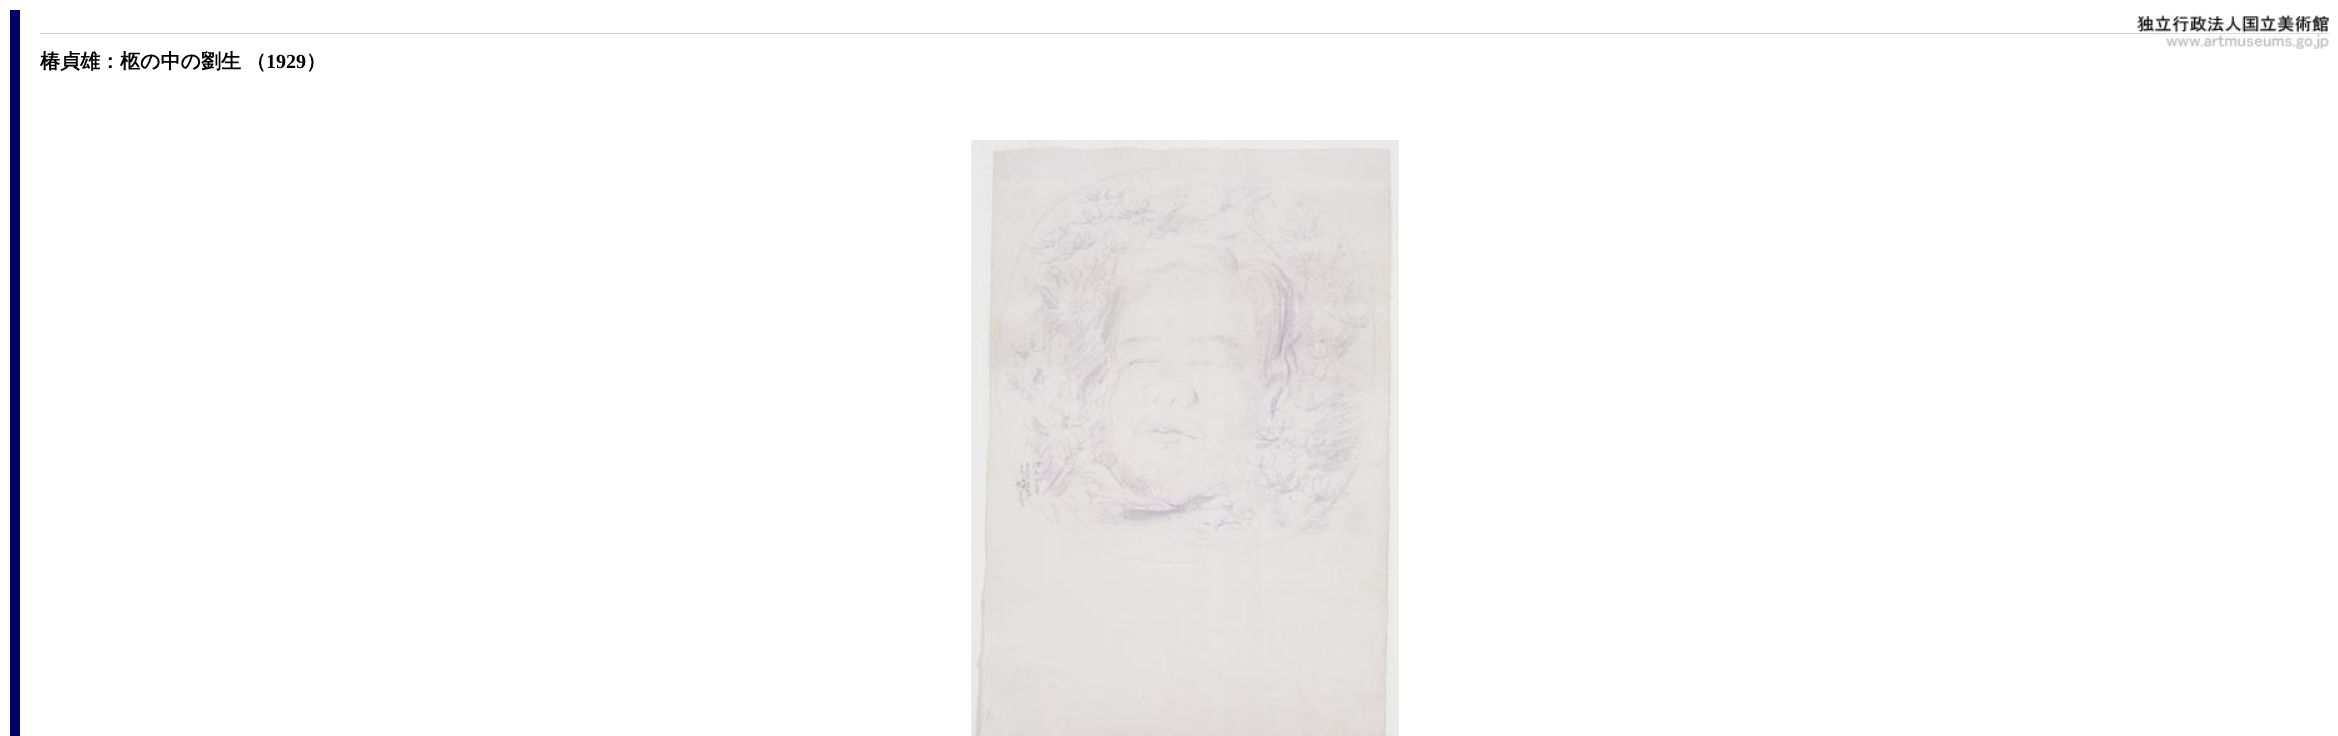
<!DOCTYPE html>
<meta charset="utf-8">
<style>body { margin: 0 } canvas { display: block }</style>
<canvas id="canvas" width="2338" height="736"></canvas>
<script type="module">
  const canvas = document.getElementById("canvas");
  const g = canvas.getContext("2d");
  g.miterLimit = 4;
  g.fontKerning = "normal";
  function drawText(s, x, y, [font, color]) {
    g.font = font;
    g.fillStyle = color;
    g.fillText(s, x, y);
  }
  function fillBox(x, y, w, h, color) {
    g.fillStyle = color;
    g.fillRect(x, y, w, h);
  }
  async function drawPicture(src, x, y, w, h) {
    const img = new Image();
    img.src = src;
    await img.decode();
    g.drawImage(img, x, y, w, h);
  }

  const s1 = ["bold 20px WenQuanYi Zen Hei", "#000000"];
  const s2 = ["bold 20px Liberation Serif", "#000000"];

  fillBox(0, 0, 2338, 736, "#FFFFFF");
  fillBox(10, 10, 10, 726, "#000066");
  await drawPicture("pic1.png", 2137, 15, 192, 18);
  fillBox(40, 33, 2289, 1, "#CCCCCC");
  await drawPicture("pic2.png", 2166, 33, 163, 16);
  g.wordSpacing = "-1px";
  drawText("椿貞雄：柩の中の劉生 （", 40, 68, s1);
  g.wordSpacing = "0px";
  drawText("1929", 266, 68, s2);
  drawText("）", 306, 68, s1);
  await drawPicture("pic3.png", 971, 140, 428, 596);
</script>
